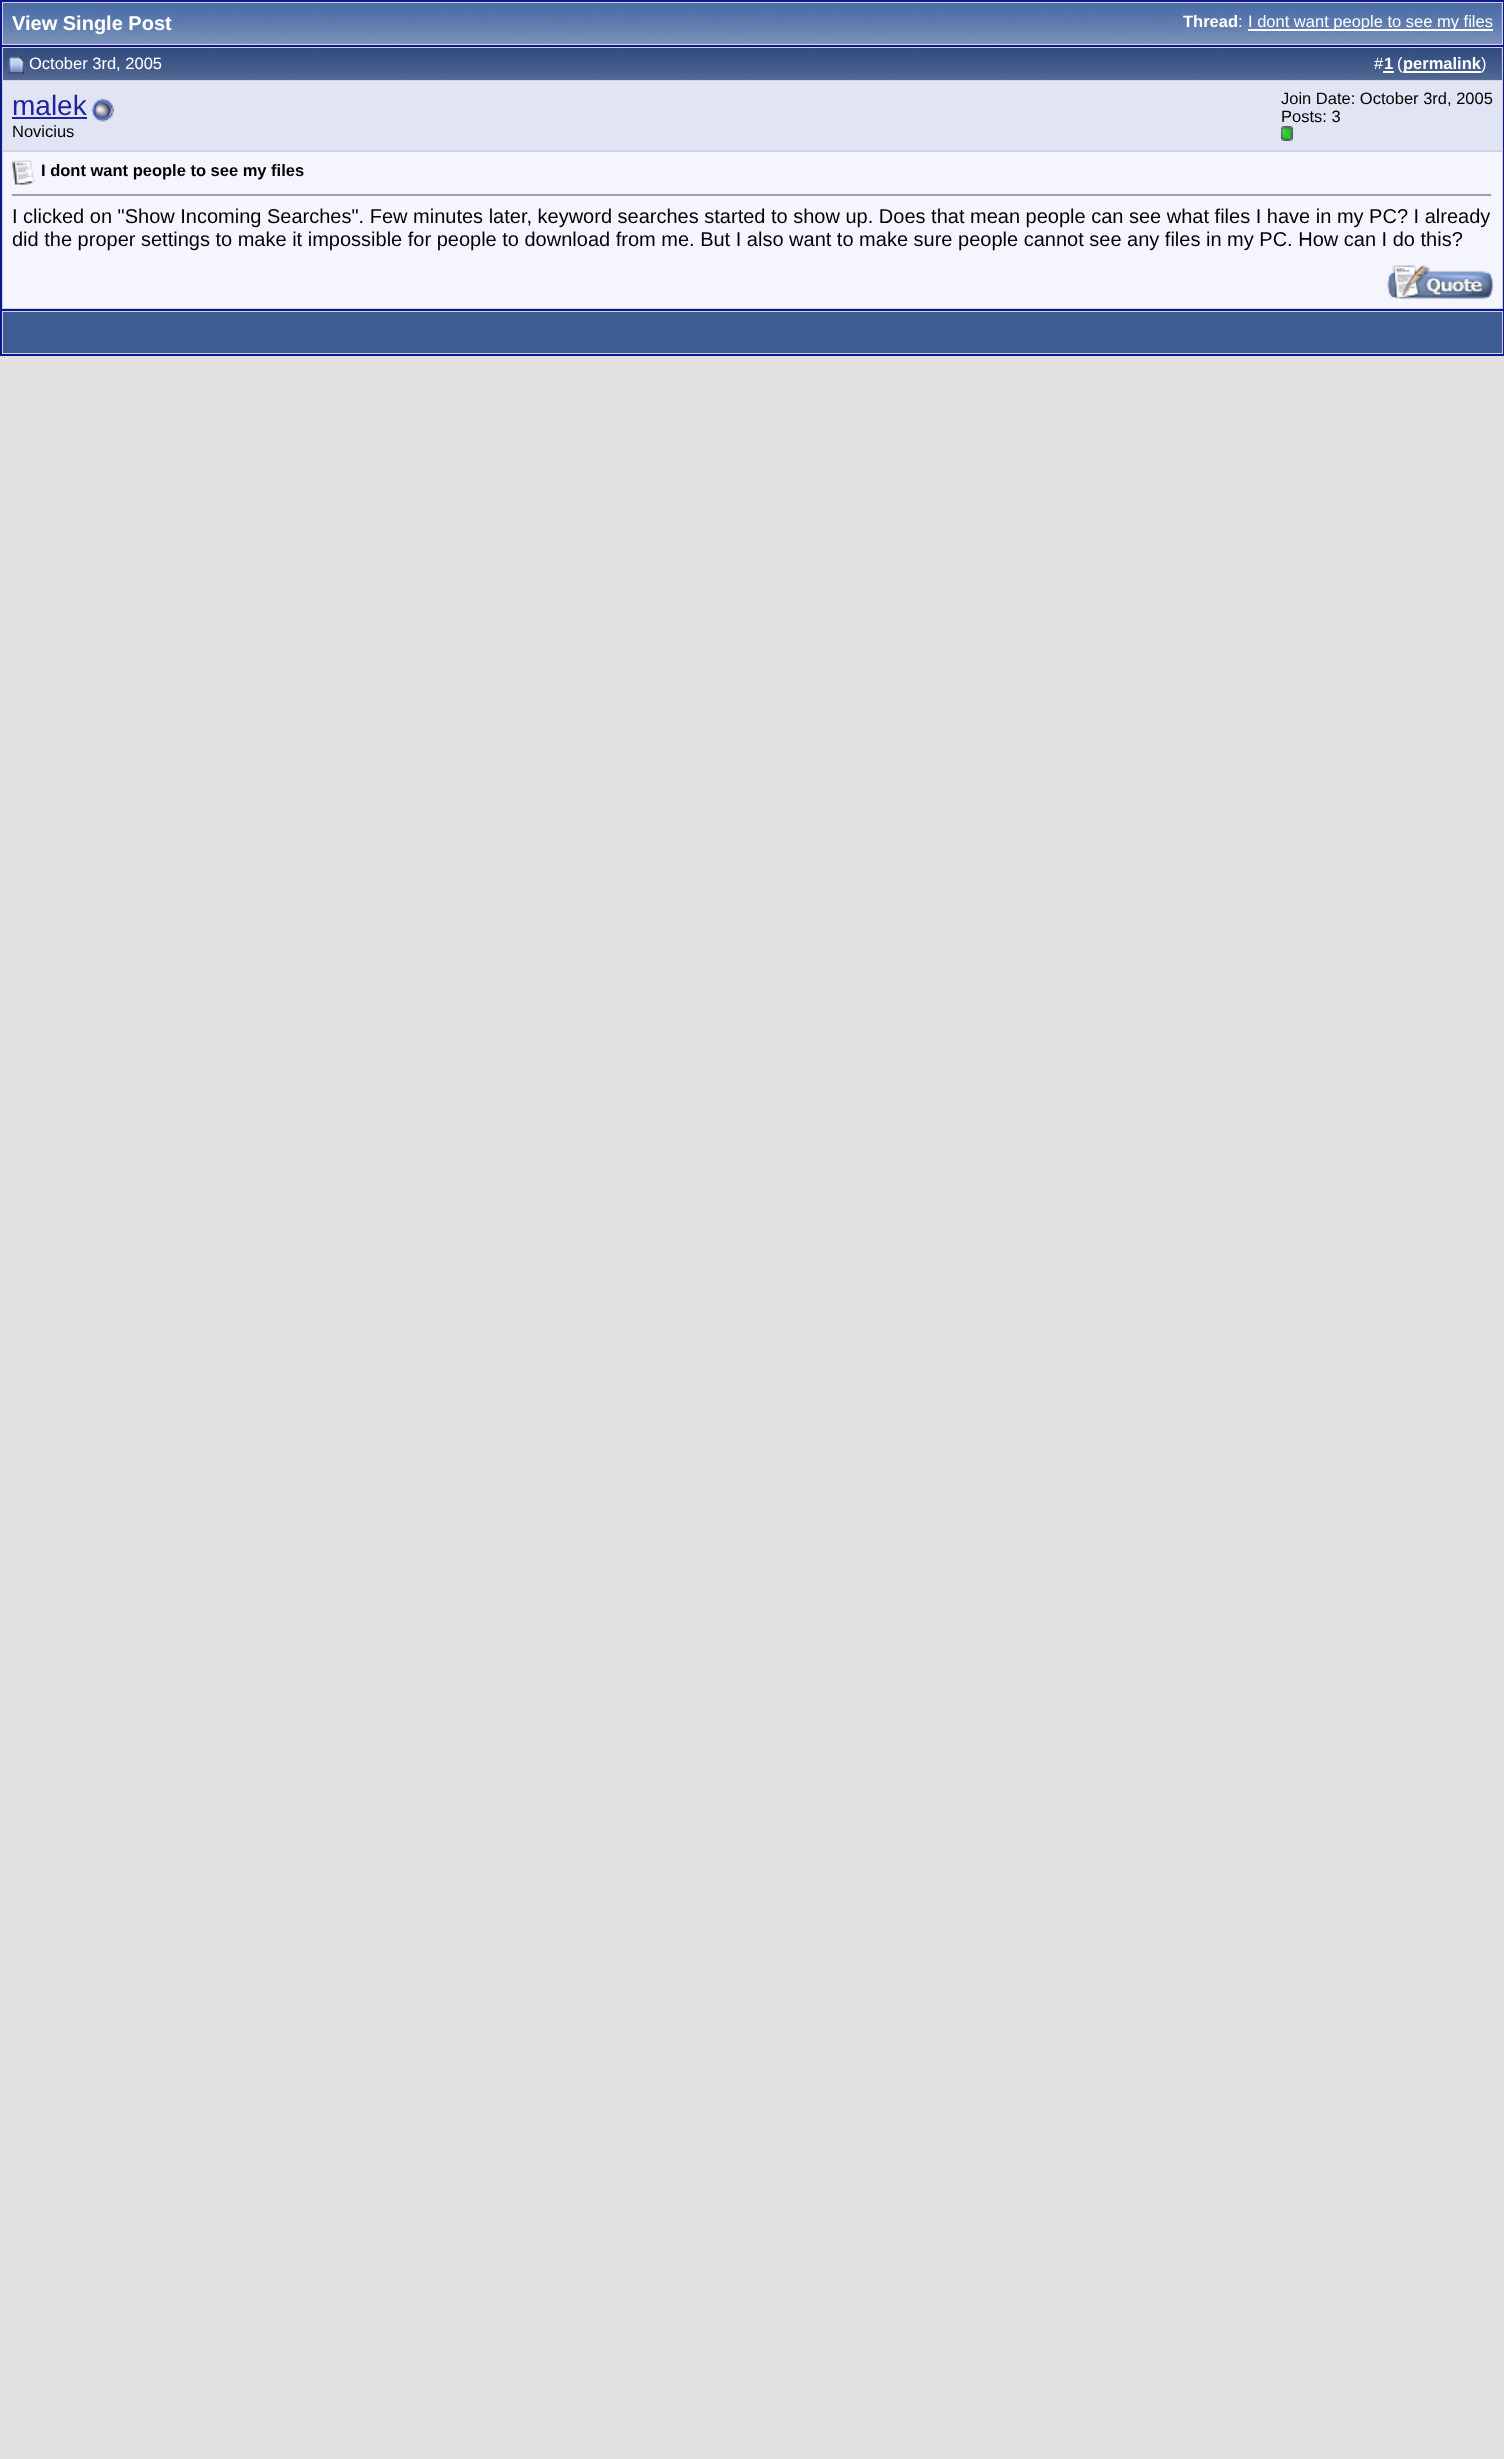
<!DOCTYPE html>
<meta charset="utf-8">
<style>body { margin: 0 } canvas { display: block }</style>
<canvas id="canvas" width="1504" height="2459"></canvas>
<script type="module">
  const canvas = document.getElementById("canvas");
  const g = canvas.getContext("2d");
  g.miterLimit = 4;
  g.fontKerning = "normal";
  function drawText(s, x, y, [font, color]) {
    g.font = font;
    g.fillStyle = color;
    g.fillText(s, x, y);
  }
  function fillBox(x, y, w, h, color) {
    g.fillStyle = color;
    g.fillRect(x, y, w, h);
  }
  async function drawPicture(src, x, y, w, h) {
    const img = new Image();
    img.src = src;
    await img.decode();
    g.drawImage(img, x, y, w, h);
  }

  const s1 = ["bold 20px Liberation Sans", "#FFFFFF"];
  const s2 = ["bold 16.5px Liberation Sans", "#FFFFFF"];
  const s3 = ["16.5px Liberation Sans", "#FFFFFF"];
  const s4 = ["28px Liberation Sans", "#22229C"];
  const s5 = ["16.5px Liberation Sans", "#000000"];
  const s6 = ["bold 16.5px Liberation Sans", "#000000"];
  const s7 = ["20px Liberation Sans", "#000000"];

  fillBox(0, 0, 1504, 2459, "#E1E1E2");
  fillBox(2, 2, 1501, 43, "#D1D1E1");
  fillBox(0, 0, 1504, 2, "#0B198C");
  fillBox(1503, 0, 1, 45, "#0B198C");
  fillBox(0, 0, 2, 45, "#0B198C");
  fillBox(3, 3, 1499, 41, "#869BBF");
  await drawPicture("pic1.png", 3, 3, 1499, 41);
  drawText("View Single Post", 12, 30, s1);
  drawText("Thread", 1183, 27, s2);
  drawText(":", 1238, 27, s3);
  fillBox(1248, 29, 245, 2, "#FFFFFF");
  drawText("I dont want people to see my files", 1248, 27, s3);
  g.fillStyle = "#D1D1E1";
  g.beginPath();
  g.rect(1, 46, 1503, 264);
  g.fill();
  g.strokeStyle = "#0B198C";
  g.lineWidth = 2;
  g.stroke();
  fillBox(3, 48, 1499, 32, "#5C7099");
  await drawPicture("pic2.png", 3, 48, 1499, 32);
  await drawPicture("pic3.png", 9, 57, 15, 17);
  drawText("October 3rd, 2005", 29, 69, s3);
  drawText("#", 1374, 69, s3);
  drawText("1", 1384, 69, s2);
  fillBox(1383, 71, 11, 2, "#FFFFFF");
  drawText("(", 1397, 69, s3);
  fillBox(1403, 71, 78, 2, "#FFFFFF");
  drawText("permalink", 1403, 69, s2);
  drawText(")", 1481, 69, s3);
  fillBox(3, 81, 1499, 69, "#E1E4F2");
  drawText("malek", 12, 115, s4);
  fillBox(12, 117, 75, 2, "#22229C");
  await drawPicture("pic4.png", 91, 99, 23, 23);
  drawText("Novicius", 12, 137, s5);
  drawText("Join Date: October 3rd, 2005", 1281, 104, s5);
  drawText("Posts: 3", 1281, 122, s5);
  await drawPicture("pic5.png", 1281, 126, 12, 15);
  fillBox(3, 152, 1499, 156, "#F5F5FF");
  await drawPicture("pic6.png", 12, 160, 23, 25);
  drawText("I dont want people to see my files", 41, 176, s6);
  fillBox(12, 194, 1481, 2, "#9F9F9F");
  fillBox(1491, 194, 2, 2, "#EEEEEE");
  drawText("I clicked on \"Show Incoming Searches\". Few minutes later, keyword searches started to show up. Does that mean people can see what files I have in my PC? I already", 12, 223, s7);
  drawText("did the proper settings to make it impossible for people to download from me. But I also want to make sure people cannot see any files in my PC. How can I do this?", 12, 246, s7);
  await drawPicture("pic7.png", 1387, 265, 106, 34);
  fillBox(2, 311, 1501, 43, "#D1D1E1");
  fillBox(1503, 311, 1, 45, "#0B198C");
  fillBox(0, 354, 1504, 2, "#0B198C");
  fillBox(0, 311, 2, 45, "#0B198C");
  fillBox(3, 312, 1499, 41, "#3E5C92");
</script>
